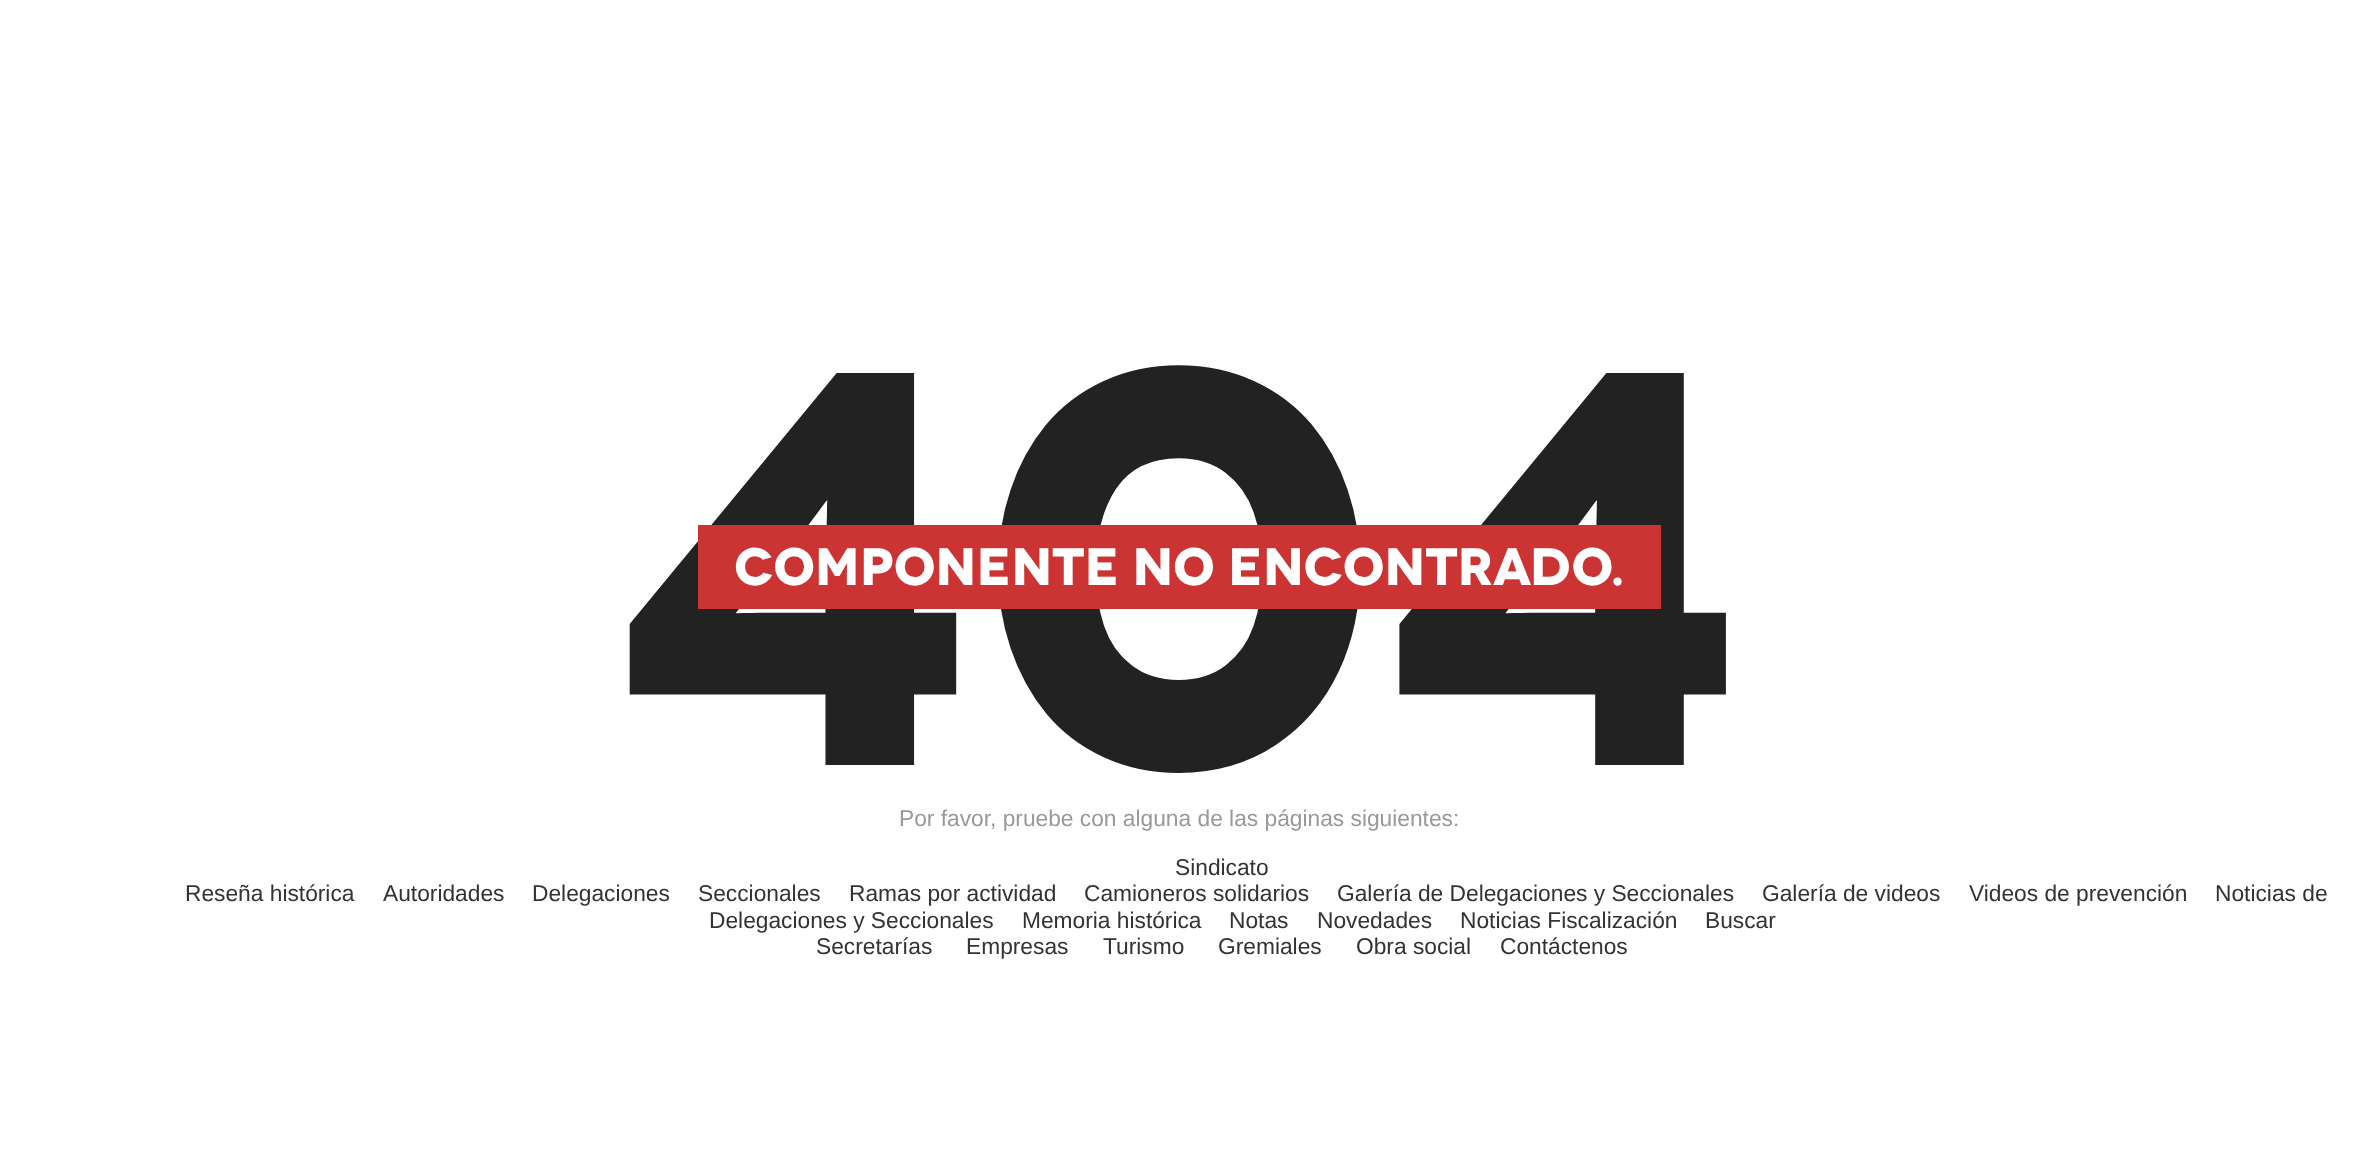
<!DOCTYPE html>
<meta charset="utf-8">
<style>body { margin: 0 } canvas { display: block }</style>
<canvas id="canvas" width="2359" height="1170"></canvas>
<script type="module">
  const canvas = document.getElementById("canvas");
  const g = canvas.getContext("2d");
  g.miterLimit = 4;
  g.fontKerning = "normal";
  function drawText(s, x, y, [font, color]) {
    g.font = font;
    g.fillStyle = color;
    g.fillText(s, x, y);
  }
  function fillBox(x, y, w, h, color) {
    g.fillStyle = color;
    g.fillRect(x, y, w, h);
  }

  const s1 = ["bold 560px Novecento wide", "#222222"];
  const s2 = ["bold 52.5px Novecento wide", "#FFFFFF"];
  const s3 = ["22.75px Liberation Sans", "#999999"];
  const s4 = ["22.75px Liberation Sans", "#333333"];

  fillBox(0, 0, 2359, 1170, "#FFFFFF");
  drawText("404", 610, 765, s1);
  fillBox(698, 525, 963, 84, "#CC3333");
  drawText("Componente no encontrado.", 734, 585, s2);
  drawText("Por favor, pruebe con alguna de las páginas siguientes:", 899, 826, s3);
  drawText("Sindicato", 1175, 875, s4);
  drawText("Reseña histórica", 185, 901, s4);
  drawText("Autoridades", 383, 901, s4);
  drawText("Delegaciones", 532, 901, s4);
  drawText("Seccionales", 698, 901, s4);
  drawText("Ramas por actividad", 849, 901, s4);
  drawText("Camioneros solidarios", 1084, 901, s4);
  drawText("Galería de Delegaciones y Seccionales", 1337, 901, s4);
  drawText("Galería de videos", 1762, 901, s4);
  drawText("Videos de prevención", 1969, 901, s4);
  drawText("Noticias de", 2215, 901, s4);
  drawText("Delegaciones y Seccionales", 709, 928, s4);
  drawText("Memoria histórica", 1022, 928, s4);
  drawText("Notas", 1229, 928, s4);
  drawText("Novedades", 1317, 928, s4);
  drawText("Noticias Fiscalización", 1460, 928, s4);
  drawText("Buscar", 1705, 928, s4);
  drawText("Secretarías", 816, 954, s4);
  drawText("Empresas", 966, 954, s4);
  drawText("Turismo", 1103, 954, s4);
  drawText("Gremiales", 1218, 954, s4);
  drawText("Obra social", 1356, 954, s4);
  drawText("Contáctenos", 1500, 954, s4);
</script>
